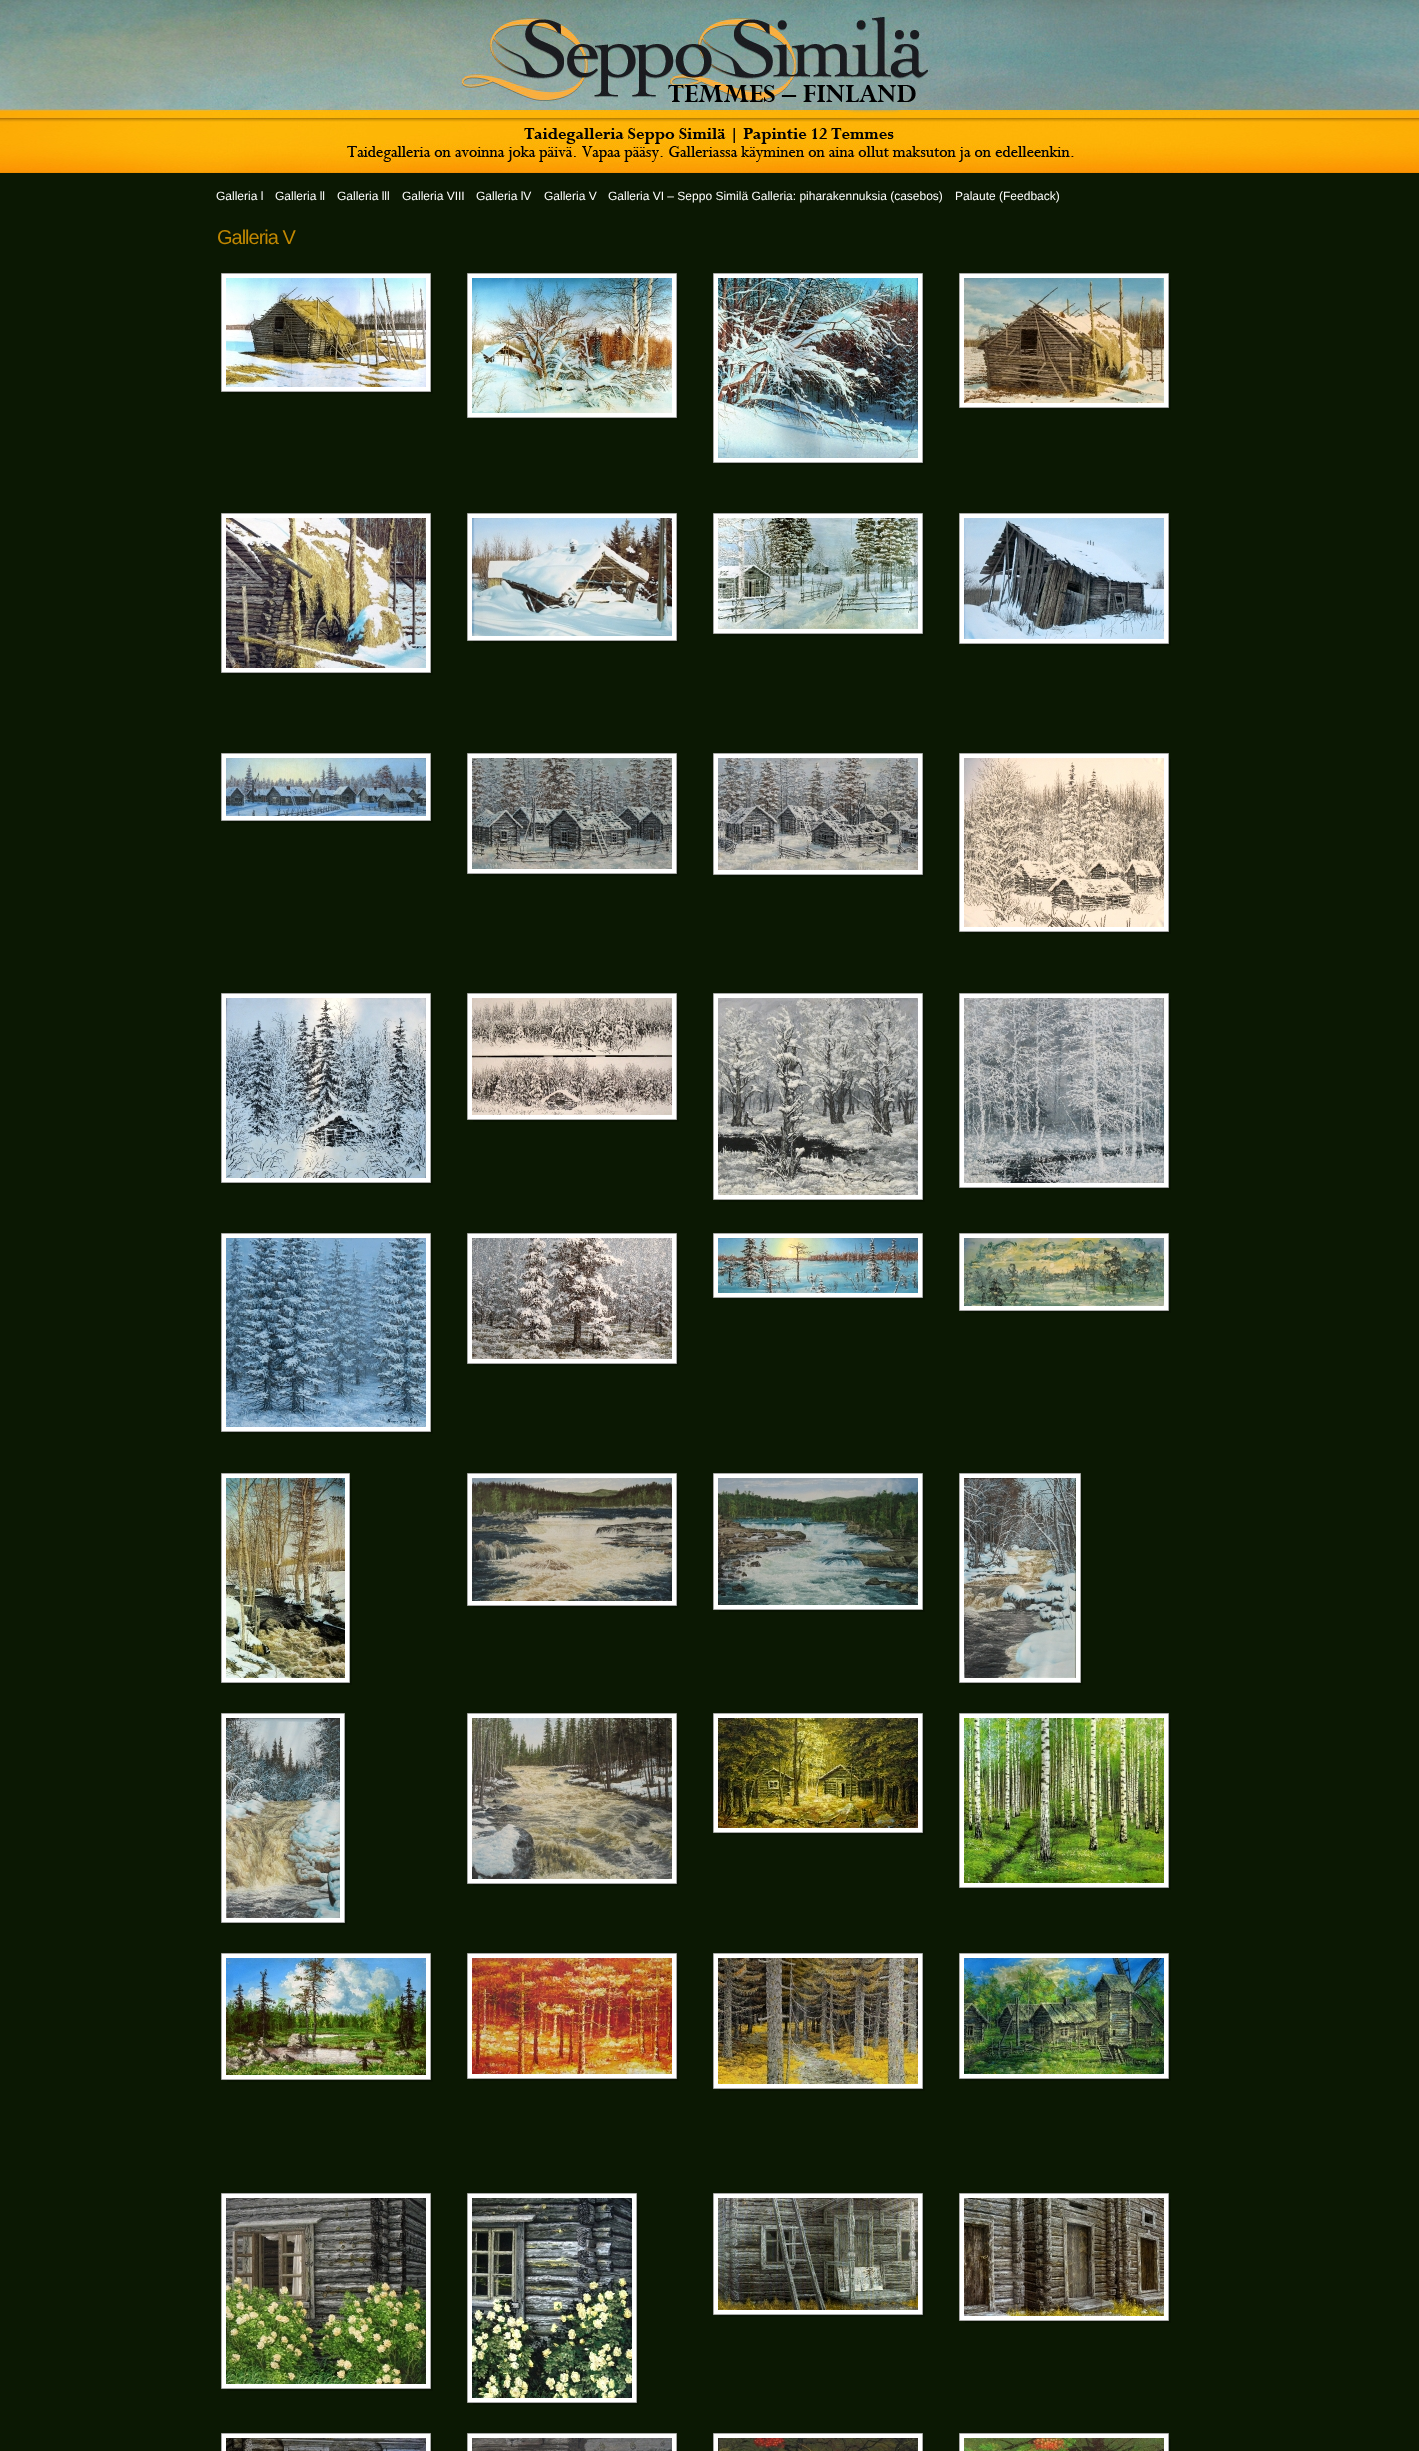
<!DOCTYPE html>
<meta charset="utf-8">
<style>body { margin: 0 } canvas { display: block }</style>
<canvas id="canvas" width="1419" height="2451"></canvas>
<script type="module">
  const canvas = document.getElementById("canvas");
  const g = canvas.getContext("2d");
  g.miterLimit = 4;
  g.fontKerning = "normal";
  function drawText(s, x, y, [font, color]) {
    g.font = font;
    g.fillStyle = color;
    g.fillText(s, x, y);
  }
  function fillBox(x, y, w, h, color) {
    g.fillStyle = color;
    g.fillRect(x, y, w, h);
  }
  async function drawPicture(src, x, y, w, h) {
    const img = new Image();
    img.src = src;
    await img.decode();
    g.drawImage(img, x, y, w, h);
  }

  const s1 = ["12px Liberation Sans", "#FFFFFF"];
  const s2 = ["20px Liberation Sans", "#C08702"];

  fillBox(0, 0, 1419, 2451, "#0B1803");
  await drawPicture("pic1.png", 0, 0, 1419, 173);
  await drawPicture("pic2.png", 210, 0, 1000, 173);
  drawText("Galleria l", 216, 200, s1);
  drawText("Galleria ll", 275, 200, s1);
  drawText("Galleria lll", 337, 200, s1);
  drawText("Galleria VIII", 402, 200, s1);
  drawText("Galleria lV", 476, 200, s1);
  drawText("Galleria V", 544, 200, s1);
  drawText("Galleria VI – Seppo Similä Galleria: piharakennuksia (casebos)", 608, 200, s1);
  drawText("Palaute (Feedback)", 955, 200, s1);
  g.letterSpacing = "-1px";
  drawText("Galleria V", 217, 244, s2);
  await drawPicture("pic3.png", 227, 279, 206, 115);
  g.fillStyle = "#FFFFFF";
  g.beginPath();
  g.rect(221.5, 273.5, 209, 118);
  g.fill();
  g.strokeStyle = "#A9A9A9";
  g.stroke();
  await drawPicture("pic4.png", 226, 278, 200, 109);
  await drawPicture("pic5.png", 473, 279, 206, 141);
  g.beginPath();
  g.rect(467.5, 273.5, 209, 144);
  g.fill();
  g.stroke();
  await drawPicture("pic6.png", 472, 278, 200, 135);
  await drawPicture("pic7.png", 719, 279, 206, 186);
  g.beginPath();
  g.rect(713.5, 273.5, 209, 189);
  g.fill();
  g.stroke();
  await drawPicture("pic8.png", 718, 278, 200, 180);
  await drawPicture("pic9.png", 965, 279, 206, 131);
  g.beginPath();
  g.rect(959.5, 273.5, 209, 134);
  g.fill();
  g.stroke();
  await drawPicture("pic10.png", 964, 278, 200, 125);
  await drawPicture("pic11.png", 227, 519, 206, 156);
  g.beginPath();
  g.rect(221.5, 513.5, 209, 159);
  g.fill();
  g.stroke();
  await drawPicture("pic12.png", 226, 518, 200, 150);
  await drawPicture("pic13.png", 473, 519, 206, 124);
  g.beginPath();
  g.rect(467.5, 513.5, 209, 127);
  g.fill();
  g.stroke();
  await drawPicture("pic14.png", 472, 518, 200, 118);
  await drawPicture("pic15.png", 719, 519, 206, 117);
  g.beginPath();
  g.rect(713.5, 513.5, 209, 120);
  g.fill();
  g.stroke();
  await drawPicture("pic16.png", 718, 518, 200, 111);
  await drawPicture("pic17.png", 965, 519, 206, 127);
  g.beginPath();
  g.rect(959.5, 513.5, 209, 130);
  g.fill();
  g.stroke();
  await drawPicture("pic18.png", 964, 518, 200, 121);
  await drawPicture("pic19.png", 227, 759, 206, 64);
  g.beginPath();
  g.rect(221.5, 753.5, 209, 67);
  g.fill();
  g.stroke();
  await drawPicture("pic20.png", 226, 758, 200, 58);
  await drawPicture("pic15.png", 473, 759, 206, 117);
  g.beginPath();
  g.rect(467.5, 753.5, 209, 120);
  g.fill();
  g.stroke();
  await drawPicture("pic21.png", 472, 758, 200, 111);
  await drawPicture("pic22.png", 719, 759, 206, 118);
  g.beginPath();
  g.rect(713.5, 753.5, 209, 121);
  g.fill();
  g.stroke();
  await drawPicture("pic23.png", 718, 758, 200, 112);
  await drawPicture("pic24.png", 965, 759, 206, 175);
  g.beginPath();
  g.rect(959.5, 753.5, 209, 178);
  g.fill();
  g.stroke();
  await drawPicture("pic25.png", 964, 758, 200, 169);
  await drawPicture("pic7.png", 227, 999, 206, 186);
  g.beginPath();
  g.rect(221.5, 993.5, 209, 189);
  g.fill();
  g.stroke();
  await drawPicture("pic26.png", 226, 998, 200, 180);
  await drawPicture("pic27.png", 473, 999, 206, 123);
  g.beginPath();
  g.rect(467.5, 993.5, 209, 126);
  g.fill();
  g.stroke();
  await drawPicture("pic28.png", 472, 998, 200, 117);
  await drawPicture("pic29.png", 719, 999, 206, 203);
  g.beginPath();
  g.rect(713.5, 993.5, 209, 206);
  g.fill();
  g.stroke();
  await drawPicture("pic30.png", 718, 998, 200, 197);
  await drawPicture("pic31.png", 965, 999, 206, 191);
  g.beginPath();
  g.rect(959.5, 993.5, 209, 194);
  g.fill();
  g.stroke();
  await drawPicture("pic32.png", 964, 998, 200, 185);
  await drawPicture("pic33.png", 227, 1239, 206, 195);
  g.beginPath();
  g.rect(221.5, 1233.5, 209, 198);
  g.fill();
  g.stroke();
  await drawPicture("pic34.png", 226, 1238, 200, 189);
  await drawPicture("pic17.png", 473, 1239, 206, 127);
  g.beginPath();
  g.rect(467.5, 1233.5, 209, 130);
  g.fill();
  g.stroke();
  await drawPicture("pic35.png", 472, 1238, 200, 121);
  await drawPicture("pic36.png", 719, 1239, 206, 61);
  g.beginPath();
  g.rect(713.5, 1233.5, 209, 64);
  g.fill();
  g.stroke();
  await drawPicture("pic37.png", 718, 1238, 200, 55);
  await drawPicture("pic38.png", 965, 1239, 206, 74);
  g.beginPath();
  g.rect(959.5, 1233.5, 209, 77);
  g.fill();
  g.stroke();
  await drawPicture("pic39.png", 964, 1238, 200, 68);
  await drawPicture("pic40.png", 227, 1479, 125, 206);
  g.beginPath();
  g.rect(221.5, 1473.5, 128, 209);
  g.fill();
  g.stroke();
  await drawPicture("pic41.png", 226, 1478, 119, 200);
  await drawPicture("pic42.png", 473, 1479, 206, 129);
  g.beginPath();
  g.rect(467.5, 1473.5, 209, 132);
  g.fill();
  g.stroke();
  await drawPicture("pic43.png", 472, 1478, 200, 123);
  await drawPicture("pic44.png", 719, 1479, 206, 133);
  g.beginPath();
  g.rect(713.5, 1473.5, 209, 136);
  g.fill();
  g.stroke();
  await drawPicture("pic45.png", 718, 1478, 200, 127);
  await drawPicture("pic46.png", 965, 1479, 118, 206);
  g.beginPath();
  g.rect(959.5, 1473.5, 121, 209);
  g.fill();
  g.stroke();
  await drawPicture("pic47.png", 964, 1478, 112, 200);
  await drawPicture("pic48.png", 227, 1719, 120, 206);
  g.beginPath();
  g.rect(221.5, 1713.5, 123, 209);
  g.fill();
  g.stroke();
  await drawPicture("pic49.png", 226, 1718, 114, 200);
  await drawPicture("pic50.png", 473, 1719, 206, 167);
  g.beginPath();
  g.rect(467.5, 1713.5, 209, 170);
  g.fill();
  g.stroke();
  await drawPicture("pic51.png", 472, 1718, 200, 161);
  await drawPicture("pic52.png", 719, 1719, 206, 116);
  g.beginPath();
  g.rect(713.5, 1713.5, 209, 119);
  g.fill();
  g.stroke();
  await drawPicture("pic53.png", 718, 1718, 200, 110);
  await drawPicture("pic54.png", 965, 1719, 206, 171);
  g.beginPath();
  g.rect(959.5, 1713.5, 209, 174);
  g.fill();
  g.stroke();
  await drawPicture("pic55.png", 964, 1718, 200, 165);
  await drawPicture("pic27.png", 227, 1959, 206, 123);
  g.beginPath();
  g.rect(221.5, 1953.5, 209, 126);
  g.fill();
  g.stroke();
  await drawPicture("pic56.png", 226, 1958, 200, 117);
  await drawPicture("pic57.png", 473, 1959, 206, 122);
  g.beginPath();
  g.rect(467.5, 1953.5, 209, 125);
  g.fill();
  g.stroke();
  await drawPicture("pic58.png", 472, 1958, 200, 116);
  await drawPicture("pic59.png", 719, 1959, 206, 132);
  g.beginPath();
  g.rect(713.5, 1953.5, 209, 135);
  g.fill();
  g.stroke();
  await drawPicture("pic60.png", 718, 1958, 200, 126);
  await drawPicture("pic57.png", 965, 1959, 206, 122);
  g.beginPath();
  g.rect(959.5, 1953.5, 209, 125);
  g.fill();
  g.stroke();
  await drawPicture("pic61.png", 964, 1958, 200, 116);
  await drawPicture("pic62.png", 227, 2199, 206, 192);
  g.beginPath();
  g.rect(221.5, 2193.5, 209, 195);
  g.fill();
  g.stroke();
  await drawPicture("pic63.png", 226, 2198, 200, 186);
  await drawPicture("pic64.png", 473, 2199, 166, 206);
  g.beginPath();
  g.rect(467.5, 2193.5, 169, 209);
  g.fill();
  g.stroke();
  await drawPicture("pic65.png", 472, 2198, 160, 200);
  await drawPicture("pic22.png", 719, 2199, 206, 118);
  g.beginPath();
  g.rect(713.5, 2193.5, 209, 121);
  g.fill();
  g.stroke();
  await drawPicture("pic66.png", 718, 2198, 200, 112);
  await drawPicture("pic13.png", 965, 2199, 206, 124);
  g.beginPath();
  g.rect(959.5, 2193.5, 209, 127);
  g.fill();
  g.stroke();
  await drawPicture("pic67.png", 964, 2198, 200, 118);
  await drawPicture("pic68.png", 431, 2439, 2, 12);
  g.beginPath();
  g.rect(221.5, 2433.5, 209, 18);
  g.fill();
  g.stroke();
  await drawPicture("pic69.png", 226, 2438, 200, 13);
  await drawPicture("pic68.png", 677, 2439, 2, 12);
  g.beginPath();
  g.rect(467.5, 2433.5, 209, 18);
  g.fill();
  g.stroke();
  await drawPicture("pic70.png", 472, 2438, 200, 13);
  await drawPicture("pic68.png", 923, 2439, 2, 12);
  g.beginPath();
  g.rect(713.5, 2433.5, 209, 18);
  g.fill();
  g.stroke();
  await drawPicture("pic71.png", 718, 2438, 200, 13);
  await drawPicture("pic68.png", 1169, 2439, 2, 12);
  g.beginPath();
  g.rect(959.5, 2433.5, 209, 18);
  g.fill();
  g.stroke();
  await drawPicture("pic72.png", 964, 2438, 200, 13);
</script>
